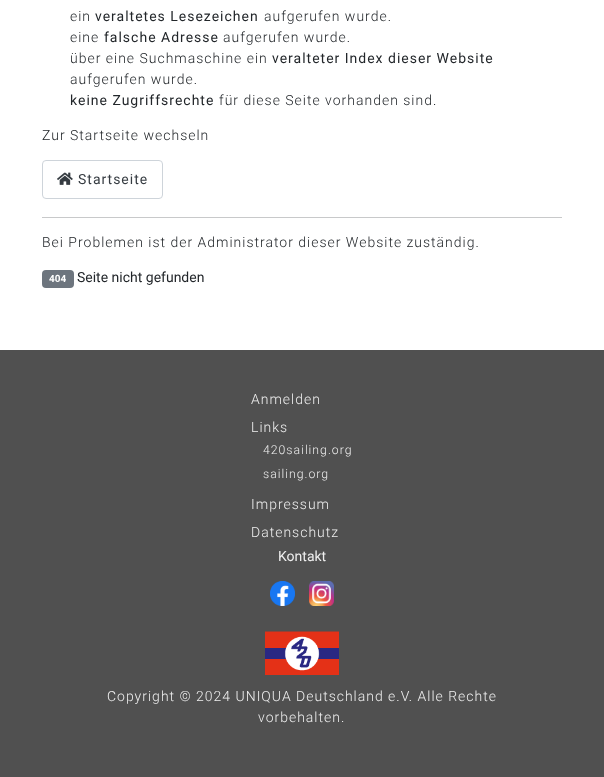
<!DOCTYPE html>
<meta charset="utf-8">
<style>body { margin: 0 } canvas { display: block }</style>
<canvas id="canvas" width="604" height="777"></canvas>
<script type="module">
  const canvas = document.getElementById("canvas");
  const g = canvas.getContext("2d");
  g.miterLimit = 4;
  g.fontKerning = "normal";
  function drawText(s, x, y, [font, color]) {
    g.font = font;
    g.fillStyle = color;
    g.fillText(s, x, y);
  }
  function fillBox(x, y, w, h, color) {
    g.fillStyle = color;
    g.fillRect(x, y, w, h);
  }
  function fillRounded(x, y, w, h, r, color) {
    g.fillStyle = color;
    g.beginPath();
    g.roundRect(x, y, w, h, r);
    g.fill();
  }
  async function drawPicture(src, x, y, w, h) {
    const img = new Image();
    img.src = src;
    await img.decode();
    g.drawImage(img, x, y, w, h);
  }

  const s1 = ["300 14px Roboto", "#22262A"];
  const s2 = ["14px Roboto", "#22262A"];
  const s3 = ["14px Roboto", "#353B41"];
  const s4 = ["bold 10px Roboto", "#FFFFFF"];
  const s5 = ["300 14px Roboto", "#EFEFEF"];
  const s6 = ["300 12.25px Roboto", "#EFEFEF"];
  const s7 = ["14px Roboto", "#EFEFEF"];

  fillBox(0, 0, 604, 777, "#FFFFFF");
  g.letterSpacing = "1px";
  drawText("ein", 70, 21, s1);
  drawText("veraltetes Lesezeichen", 95, 21, s2);
  drawText("aufgerufen wurde.", 264, 21, s1);
  drawText("eine", 70, 42, s1);
  drawText("falsche Adresse", 104, 42, s2);
  drawText("aufgerufen wurde.", 223, 42, s1);
  drawText("über eine Suchmaschine ein", 70, 63, s1);
  drawText("veralteter Index dieser Website", 272, 63, s2);
  drawText("aufgerufen wurde.", 70, 84, s1);
  drawText("keine Zugriffsrechte", 70, 105, s2);
  drawText("für diese Seite vorhanden sind.", 219, 105, s1);
  drawText("Zur Startseite wechseln", 42, 140, s1);
  g.beginPath();
  g.roundRect(42.5, 160.5, 120, 38, 3.5);
  g.strokeStyle = "#CED4DA";
  g.stroke();
  await drawPicture("pic1.png", 57, 172, 16, 13);
  drawText("Startseite", 78, 184, s3);
  fillBox(42, 217, 520, 1, "#C8C9CA");
  drawText("Bei Problemen ist der Administrator dieser Website zuständig.", 42, 247, s1);
  fillRounded(42, 270, 32, 18, 4, "#6D757E");
  g.letterSpacing = "0px";
  drawText("404", 49, 282, s4);
  drawText("Seite nicht gefunden", 77, 282, s2);
  fillBox(0, 350, 604, 427, "#505050");
  g.letterSpacing = "1px";
  drawText("Anmelden", 251, 404, s5);
  drawText("Links", 251, 432, s5);
  drawText("420sailing.org", 263, 454, s6);
  drawText("sailing.org", 263, 478, s6);
  drawText("Impressum", 251, 509, s5);
  drawText("Datenschutz", 251, 537, s5);
  g.letterSpacing = "0px";
  drawText("Kontakt", 278, 561, s7);
  await drawPicture("pic2.png", 270, 581, 25, 25);
  await drawPicture("pic3.png", 309, 581, 25, 25);
  await drawPicture("pic4.png", 265, 631, 74, 44);
  g.letterSpacing = "1px";
  drawText("Copyright © 2024 UNIQUA Deutschland e.V. Alle Rechte", 107, 701, s5);
  drawText("vorbehalten.", 258, 722, s5);
</script>
